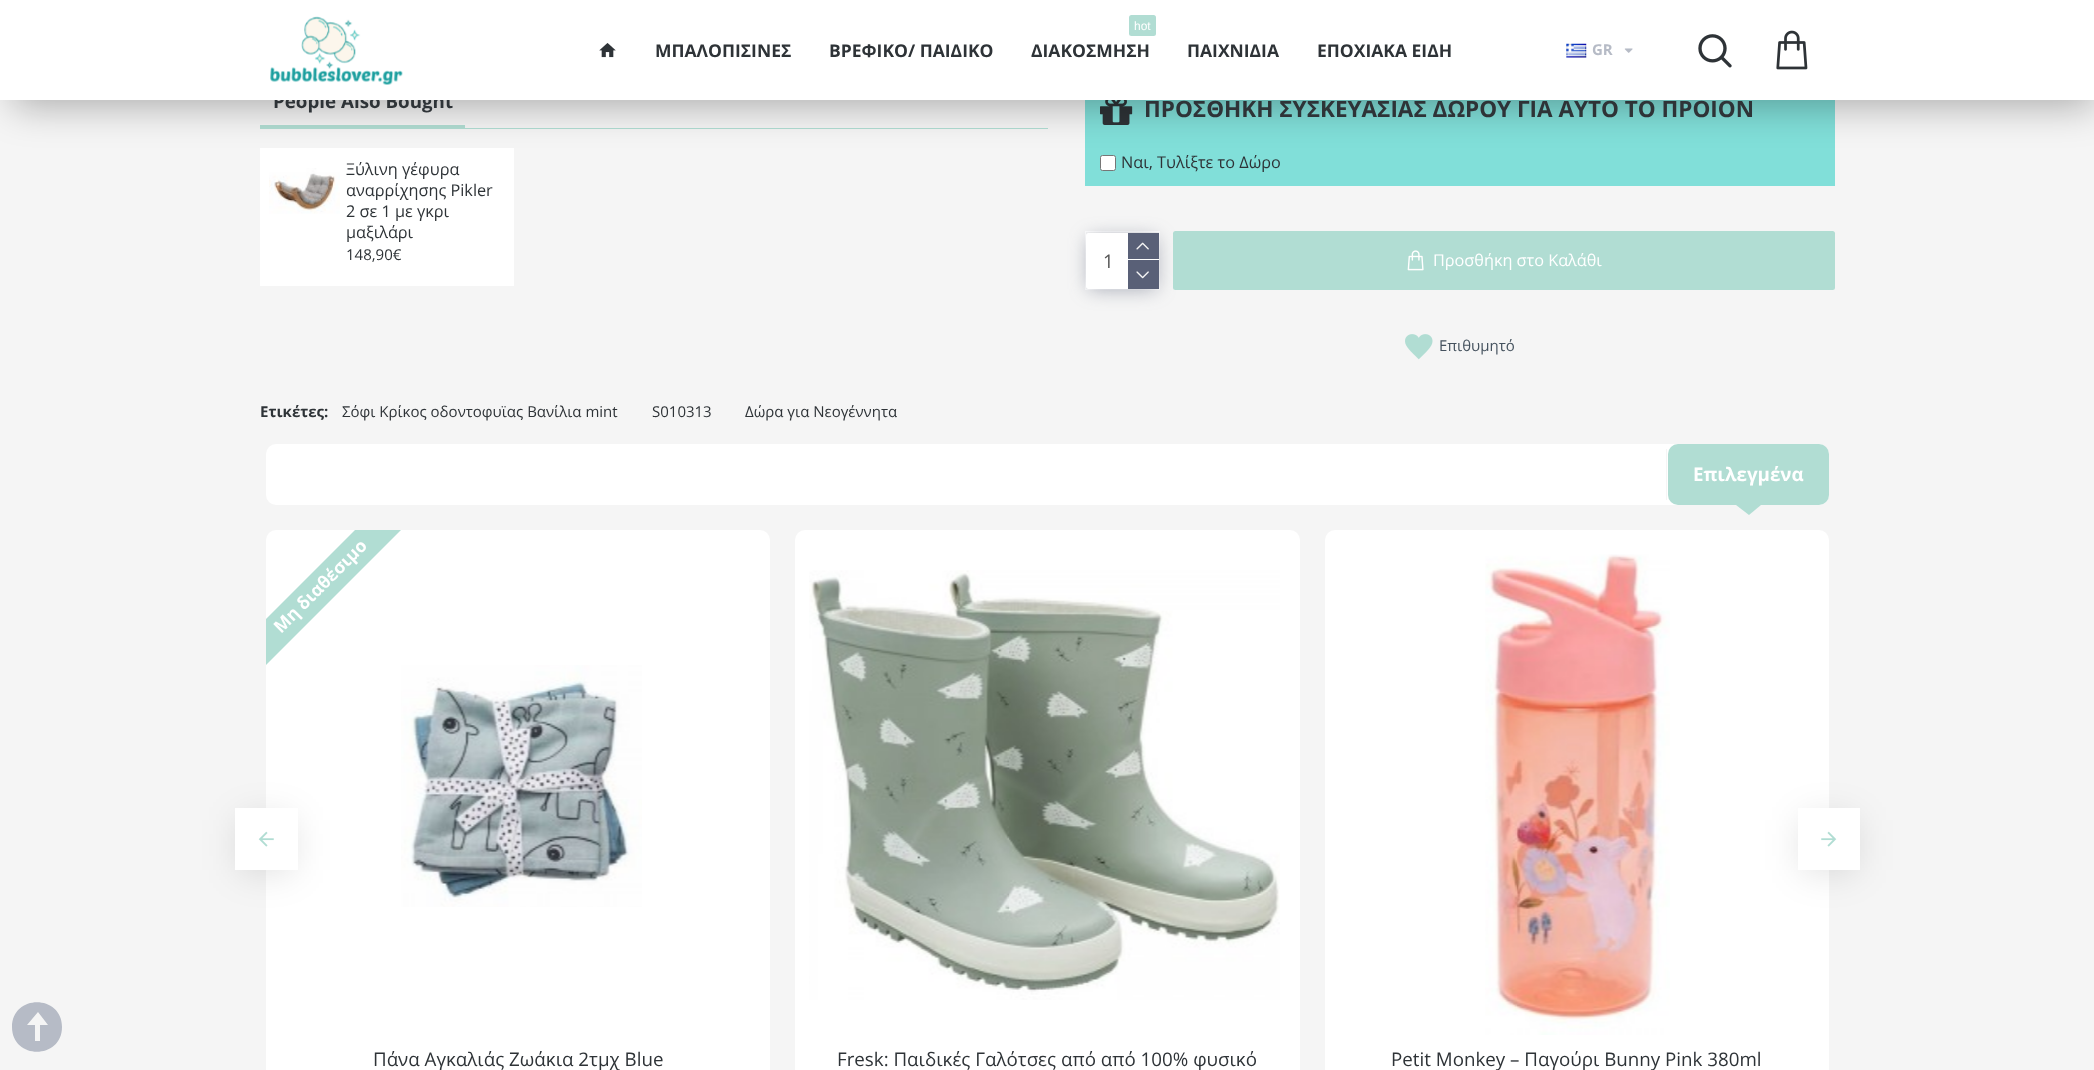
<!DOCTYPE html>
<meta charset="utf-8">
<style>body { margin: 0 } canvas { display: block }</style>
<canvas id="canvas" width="2094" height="1070"></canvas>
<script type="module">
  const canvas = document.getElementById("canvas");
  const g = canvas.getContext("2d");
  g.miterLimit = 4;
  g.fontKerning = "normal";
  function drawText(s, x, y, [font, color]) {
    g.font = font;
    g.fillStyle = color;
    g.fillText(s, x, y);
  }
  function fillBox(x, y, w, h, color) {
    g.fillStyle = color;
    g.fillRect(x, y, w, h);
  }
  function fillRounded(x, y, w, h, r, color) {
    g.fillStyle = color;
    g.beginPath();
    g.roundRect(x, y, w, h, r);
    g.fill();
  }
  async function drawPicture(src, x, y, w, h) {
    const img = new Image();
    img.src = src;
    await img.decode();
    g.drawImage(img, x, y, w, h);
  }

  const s1 = ["bold 18.75px Open Sans", "#2E3337"];
  const s2 = ["bold 22.5px Open Sans", "#2E3337"];
  const s3 = ["bold 17.5px Open Sans", "#2E3337"];
  const s4 = ["12px Liberation Sans", "#FFFFFF"];
  const s5 = ["bold 15px Open Sans", "#B6BBC6"];
  const s6 = ["16.25px Open Sans", "#2E3337"];
  const s7 = ["15px Open Sans", "#2E3337"];
  const s8 = ["18.75px Open Sans", "#555555"];
  const s9 = ["16.25px Open Sans", "#FFFFFF"];
  const s10 = ["15px Open Sans", "#45525E"];
  const s11 = ["bold 15px Open Sans", "#2E3337"];
  const s12 = ["bold 18.75px Open Sans", "#FFFFFF"];
  const s13 = ["18.75px Open Sans", "#2E3337"];

  fillBox(0, 0, 2094, 1070, "#F5F5F5");
  g.fillStyle = "#B6BBC6";
  g.beginPath();
  g.moveTo(12, 1027);
  g.bezierCurveTo(12, 1060, 62, 1060, 62, 1027);
  g.bezierCurveTo(62, 994, 12, 994, 12, 1027);
  g.closePath();
  g.moveTo(48, 1025);
  g.lineTo(40, 1025);
  g.lineTo(40, 1041);
  g.lineTo(35, 1041);
  g.lineTo(35, 1025);
  g.lineTo(27, 1025);
  g.lineTo(38, 1012);
  g.closePath();
  g.fill();
  fillBox(260, 128, 788, 1, "#B1DDD3");
  fillBox(260, 125, 205, 3, "#B1DDD3");
  fillBox(260, 148, 254, 138, "#FFFFFF");
  fillBox(1085, 100, 750, 86, "#81DFD9");
  await drawPicture("pic8.png", 1100, 100, 33, 25);
  g.fillStyle = "#FFFFFF";
  g.beginPath();
  g.roundRect(1100.5, 155.5, 15, 15, 2);
  g.fill();
  g.strokeStyle = "#767676";
  g.stroke();
  g.fillStyle = "rgba(0, 0, 0, 0.3)";
  g.filter = "blur(19px)";
  g.beginPath();
  g.rect(13, -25, 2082, 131);
  g.fill();
  g.filter = "none";
  drawText("People Also Bought", 273, 108, s1);
  drawText("ΠΡΟΣΘΗΚΗ ΣΥΣΚΕΥΑΣΙΑΣ ΔΩΡΟΥ ΓΙΑ ΑΥΤΟ ΤΟ ΠΡΟΪΟΝ", 1144, 117, s2);
  fillBox(0, 0, 2094, 100, "#FFFFFF");
  await drawPicture("pic1.png", 270, 16, 133, 69);
  await drawPicture("pic2.png", 599, 43, 17, 15);
  drawText("ΜΠΑΛΟΠΙΣΙΝΕΣ", 655, 57, s3);
  drawText("ΒΡΕΦΙΚΟ/ ΠΑΙΔΙΚΟ", 829, 57, s3);
  fillRounded(1129, 15, 27, 21, 2.5, "#B1DDD3");
  drawText("hot", 1134, 30, s4);
  drawText("ΔΙΑΚΟΣΜΗΣΗ", 1031, 57, s3);
  drawText("ΠΑΙΧΝΙΔΙΑ", 1187, 57, s3);
  drawText("ΕΠΟΧΙΑΚΑ ΕΙΔΗ", 1317, 57, s3);
  await drawPicture("pic3.png", 1566, 43, 21, 15);
  drawText("GR", 1592, 55, s5);
  await drawPicture("pic4.png", 1624, 48, 9, 5);
  await drawPicture("pic5.png", 1698, 34, 34, 34);
  await drawPicture("pic6.png", 1776, 30, 32, 40);
  await drawPicture("pic7.png", 269, 168, 71, 46);
  drawText("Ξύλινη γέφυρα", 346, 175, s6);
  drawText("αναρρίχησης Pikler", 346, 196, s6);
  drawText("2 σε 1 με γκρι", 346, 217, s6);
  drawText("μαξιλάρι", 346, 238, s6);
  drawText("148,90€", 346, 260, s7);
  drawText("Ναι, Τυλίξτε το Δώρο", 1121, 168, s6);
  g.strokeStyle = "#FFFFFF";
  g.strokeRect(1085.5, 231.5, 74, 58);
  g.fillStyle = "rgba(89, 96, 119, 0.52)";
  g.filter = "blur(9.5px)";
  g.beginPath();
  g.rect(1089, 238, 67, 51);
  g.fill();
  g.filter = "none";
  fillRounded(1086, 233, 73, 56, 2.5, "#FFFFFF");
  drawText("1", 1103, 268, s8);
  fillBox(1128, 233, 31, 26, "#596077");
  await drawPicture("pic9.png", 1136, 242, 13, 8);
  fillBox(1128, 260, 31, 29, "#596077");
  await drawPicture("pic10.png", 1136, 271, 13, 8);
  fillRounded(1173, 231, 662, 59, 2.5, "#B1DDD3");
  await drawPicture("pic11.png", 1407, 250, 17, 21);
  drawText("Προσθήκη στο Καλάθι", 1433, 266, s9);
  await drawPicture("pic12.png", 1405, 334, 28, 26);
  drawText("Επιθυμητό", 1439, 351, s10);
  drawText("Ετικέτες:", 260, 417, s11);
  drawText("Σόφι Κρίκος οδοντοφυϊας Βανίλια mint", 342, 417, s7);
  drawText("S010313", 652, 417, s7);
  drawText("Δώρα για Νεογέννητα", 745, 417, s7);
  fillRounded(266, 444, 1563, 61, 10, "#FFFFFF");
  fillBox(1666, 449, 1, 51, "#F5F5F5");
  fillRounded(1668, 444, 161, 61, 10, "#B1DDD3");
  drawText("Επιλεγμένα", 1693, 481, s12);
  g.fillStyle = "#B1DDD3";
  g.beginPath();
  g.moveTo(1736, 505);
  g.lineTo(1761, 505);
  g.lineTo(1749, 515);
  g.closePath();
  g.fill();
  fillRounded(266, 530, 504, 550, 10, "#FFFFFF");
  g.fillStyle = "#B1DDD3";
  g.beginPath();
  g.moveTo(401, 530);
  g.lineTo(266, 665);
  g.lineTo(266, 619);
  g.lineTo(355, 530);
  g.closePath();
  g.fill();
  g.font = "bold 17.5px Open Sans";
  g.fillStyle = "#FFFFFF";
  g.save();
  g.translate(281, 634);
  g.rotate(-45 * Math.PI / 180);
  g.fillText("Μη διαθέσιμο", 0, 0);
  g.restore();
  await drawPicture("pic13.png", 401, 665, 241, 242);
  drawText("Πάνα Aγκαλιάς Zωάκια 2τμχ Blue", 373, 1066, s13);
  fillRounded(795, 530, 505, 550, 10, "#FFFFFF");
  await drawPicture("pic14.png", 809, 570, 471, 430);
  drawText("Fresk: Παιδικές Γαλότσες από από 100% φυσικό", 837, 1066, s13);
  fillRounded(1325, 530, 504, 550, 10, "#FFFFFF");
  await drawPicture("pic15.png", 1485, 554, 185, 481);
  drawText("Petit Monkey – Παγούρι Bunny Pink 380ml", 1391, 1066, s13);
  g.fillStyle = "rgba(0, 0, 0, 0.15)";
  g.filter = "blur(19px)";
  g.beginPath();
  g.rect(241, 820, 50, 50);
  g.fill();
  g.filter = "none";
  fillBox(235, 808, 63, 62, "#FFFFFF");
  await drawPicture("pic16.png", 258, 831, 16, 16);
  g.fillStyle = "rgba(0, 0, 0, 0.15)";
  g.filter = "blur(19px)";
  g.beginPath();
  g.rect(1804, 820, 50, 50);
  g.fill();
  g.filter = "none";
  fillBox(1798, 808, 62, 62, "#FFFFFF");
  await drawPicture("pic17.png", 1821, 831, 16, 16);
</script>
